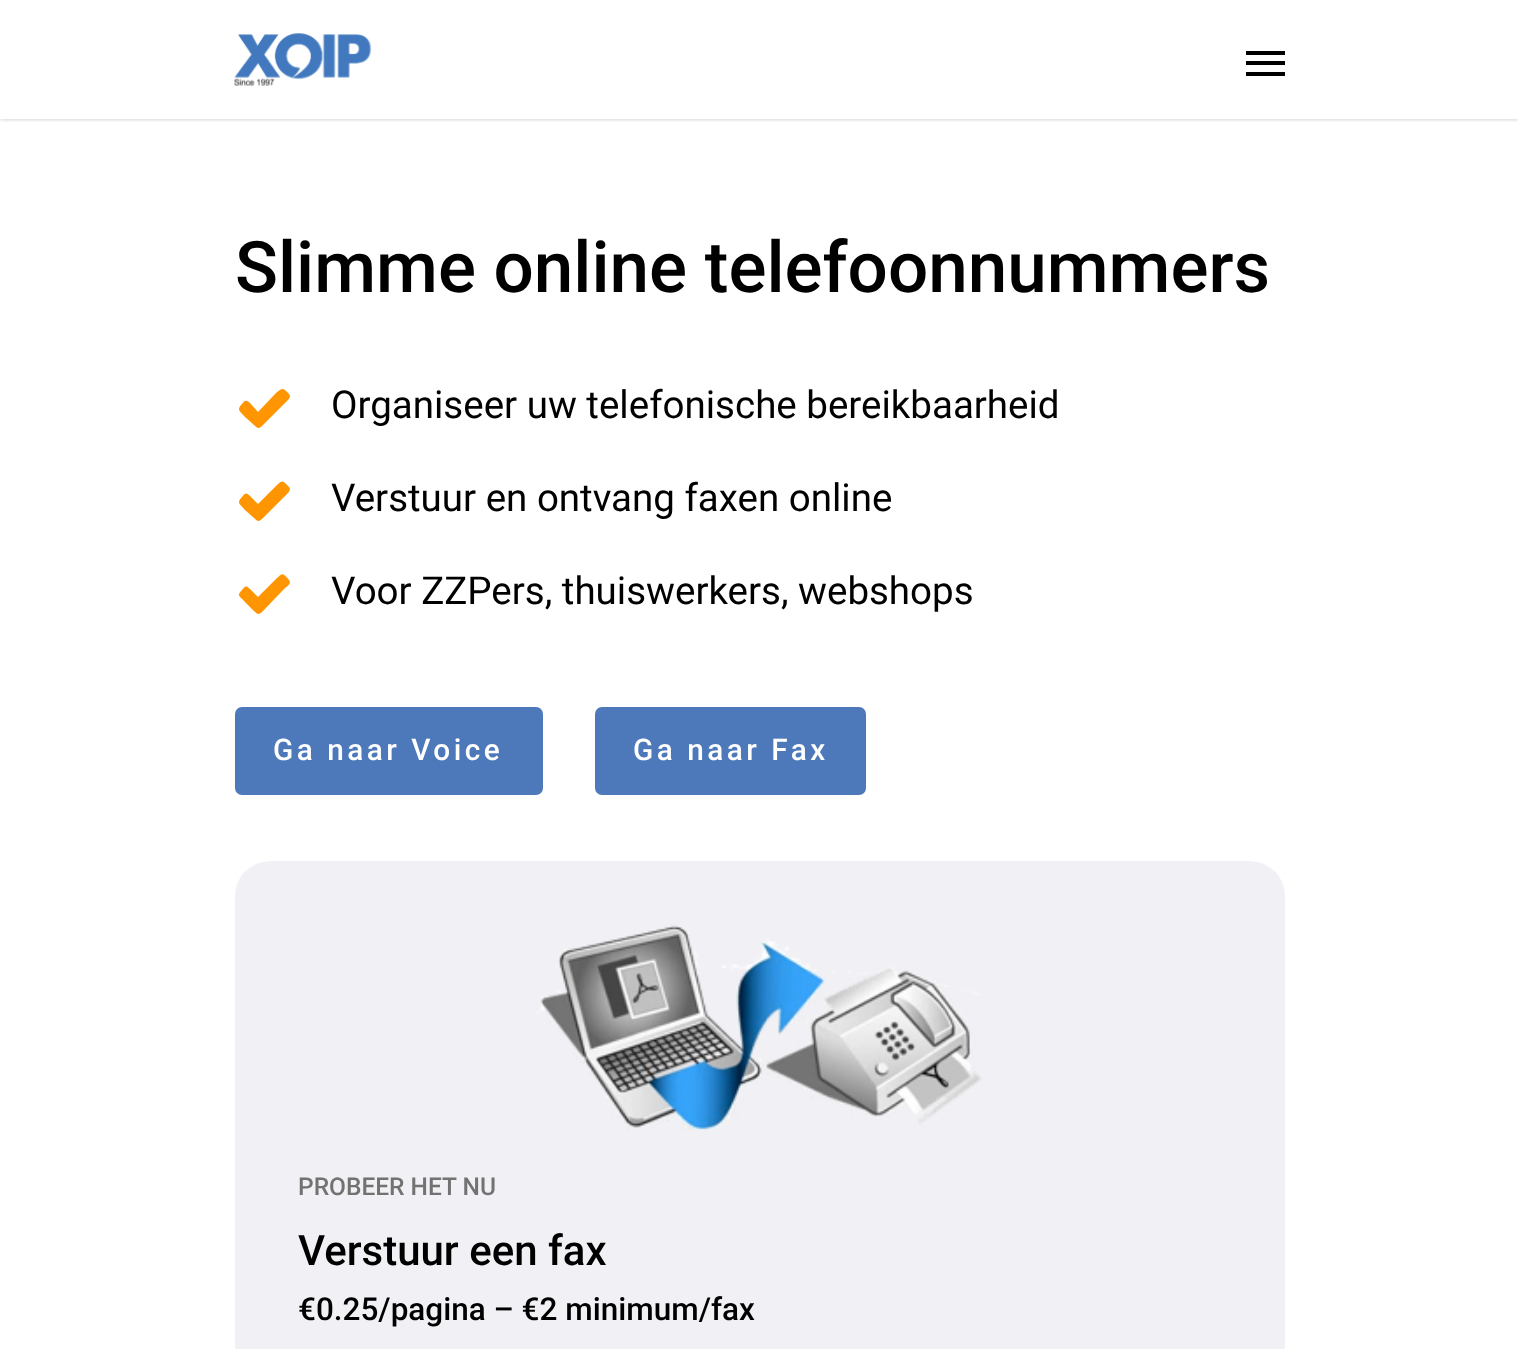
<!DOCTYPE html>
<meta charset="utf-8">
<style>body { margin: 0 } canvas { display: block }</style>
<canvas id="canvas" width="1518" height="1349"></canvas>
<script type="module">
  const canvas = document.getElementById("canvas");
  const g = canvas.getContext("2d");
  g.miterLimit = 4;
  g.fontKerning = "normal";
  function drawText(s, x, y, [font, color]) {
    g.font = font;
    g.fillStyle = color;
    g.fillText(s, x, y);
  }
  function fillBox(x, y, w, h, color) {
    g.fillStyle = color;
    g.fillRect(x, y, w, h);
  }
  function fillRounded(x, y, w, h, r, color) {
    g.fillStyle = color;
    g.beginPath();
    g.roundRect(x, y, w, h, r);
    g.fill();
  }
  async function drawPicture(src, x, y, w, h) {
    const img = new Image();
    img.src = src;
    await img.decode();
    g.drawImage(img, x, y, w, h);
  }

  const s1 = ["500 71px Roboto", "#000000"];
  const s2 = ["38.5px Roboto", "#000000"];
  const s3 = ["500 29.75px Roboto", "#FFFFFF"];
  const s4 = ["500 24.5px Roboto", "#727272"];
  const s5 = ["500 42px Roboto", "#000000"];
  const s6 = ["500 31.5px Roboto", "#000000"];

  fillBox(0, 0, 1518, 1349, "#FFFFFF");
  g.save();
  g.beginPath();
  g.rect(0, 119, 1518, 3);
  g.clip();
  g.fillStyle = "rgba(0, 0, 0, 0.22)";
  g.filter = "blur(2.5px)";
  g.beginPath();
  g.rect(0, 0, 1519, 119);
  g.fill();
  g.filter = "none";
  g.restore();
  await drawPicture("pic1.png", 234, 33, 138, 53);
  fillBox(1246, 51, 39, 4, "#000000");
  fillBox(1246, 72, 39, 4, "#000000");
  fillBox(1246, 61, 39, 4, "#000000");
  drawText("Slimme online telefoonnummers", 235, 292, s1);
  g.fillStyle = "#FF9500";
  g.beginPath();
  g.moveTo(289, 394);
  g.bezierCurveTo(292, 397, 287, 401, 285, 403);
  g.lineTo(263, 425);
  g.bezierCurveTo(259, 429, 258, 429, 254, 425);
  g.lineTo(245, 417);
  g.bezierCurveTo(240, 411, 236, 410, 242, 404);
  g.bezierCurveTo(245, 400, 246, 400, 250, 403);
  g.lineTo(258, 412);
  g.lineTo(276, 393);
  g.bezierCurveTo(283, 387, 283, 388, 289, 394);
  g.closePath();
  g.fill();
  drawText("Organiseer uw telefonische bereikbaarheid", 331, 418, s2);
  g.fillStyle = "#FF9500";
  g.beginPath();
  g.moveTo(289, 487);
  g.bezierCurveTo(292, 490, 287, 494, 285, 496);
  g.lineTo(263, 518);
  g.bezierCurveTo(259, 522, 258, 522, 254, 518);
  g.lineTo(245, 510);
  g.bezierCurveTo(240, 504, 236, 503, 242, 497);
  g.bezierCurveTo(245, 493, 246, 492, 250, 496);
  g.lineTo(258, 504);
  g.lineTo(276, 486);
  g.bezierCurveTo(283, 479, 283, 481, 289, 487);
  g.closePath();
  g.fill();
  drawText("Verstuur en ontvang faxen online", 331, 511, s2);
  g.fillStyle = "#FF9500";
  g.beginPath();
  g.moveTo(289, 580);
  g.bezierCurveTo(292, 583, 287, 587, 285, 588);
  g.lineTo(263, 611);
  g.bezierCurveTo(259, 615, 258, 615, 254, 611);
  g.lineTo(245, 602);
  g.bezierCurveTo(240, 596, 236, 596, 242, 590);
  g.bezierCurveTo(245, 586, 246, 585, 250, 589);
  g.lineTo(258, 597);
  g.lineTo(276, 579);
  g.bezierCurveTo(283, 572, 283, 573, 289, 580);
  g.closePath();
  g.fill();
  drawText("Voor ZZPers, thuiswerkers, webshops", 331, 604, s2);
  fillRounded(235, 707, 308, 88, 7, "#4D78B9");
  g.letterSpacing = "3.5px";
  drawText("Ga naar Voice", 273, 760, s3);
  fillRounded(595, 707, 271, 88, 7, "#4D78B9");
  drawText("Ga naar Fax", 633, 760, s3);
  fillRounded(235, 861, 1050, 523, 35, "#F1F1F5");
  await drawPicture("pic2.png", 536, 925, 446, 206);
  g.letterSpacing = "0px";
  drawText("PROBEER HET NU", 298, 1195, s4);
  drawText("Verstuur een fax", 298, 1265, s5);
  drawText("€0.25/pagina – €2 minimum/fax", 298, 1320, s6);
</script>
